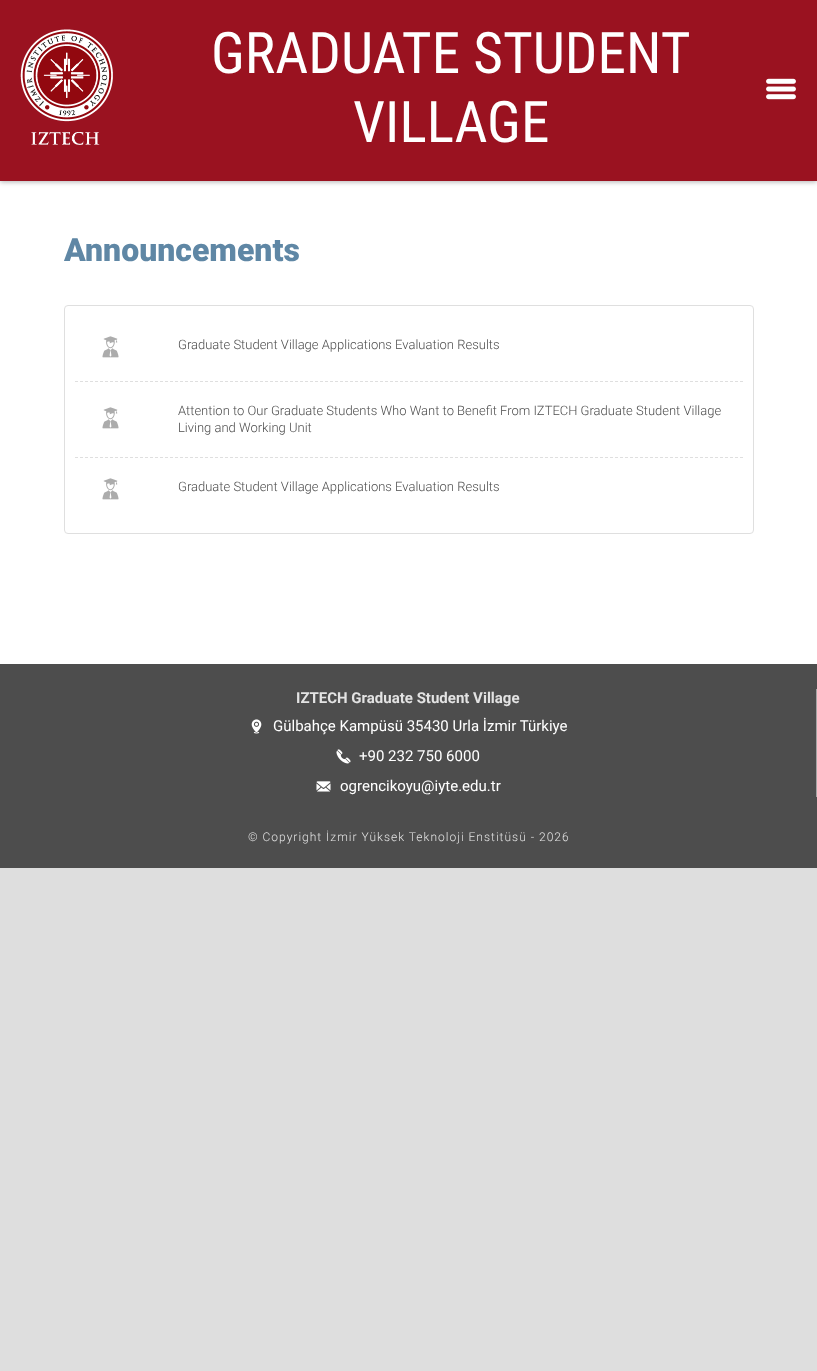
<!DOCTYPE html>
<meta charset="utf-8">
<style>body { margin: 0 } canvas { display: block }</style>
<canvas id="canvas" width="817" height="1371"></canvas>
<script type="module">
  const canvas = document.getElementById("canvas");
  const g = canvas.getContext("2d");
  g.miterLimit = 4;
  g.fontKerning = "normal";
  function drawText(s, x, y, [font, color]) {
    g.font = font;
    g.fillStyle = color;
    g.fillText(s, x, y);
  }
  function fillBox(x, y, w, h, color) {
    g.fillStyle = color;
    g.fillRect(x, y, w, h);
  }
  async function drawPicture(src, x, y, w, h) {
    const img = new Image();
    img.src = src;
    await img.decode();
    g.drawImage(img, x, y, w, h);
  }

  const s1 = ["57.25px Roboto Condensed", "#FFFFFF"];
  const s2 = ["900 32px Roboto", "#5F87A5"];
  const s3 = ["300 13px Roboto", "#4D4D4D"];
  const s4 = ["bold 15px Roboto", "#E3E3E3"];
  const s5 = ["15px Roboto", "#FFFFFF"];
  const s6 = ["300 12px Roboto", "#E3E3E3"];

  fillBox(0, 0, 817, 1371, "#DEDEDE");
  fillBox(0, 181, 817, 483, "#FFFFFF");
  g.fillStyle = "rgba(0, 0, 0, 0.3)";
  g.filter = "blur(2.5px)";
  g.beginPath();
  g.rect(0, 1, 817, 181);
  g.fill();
  g.filter = "none";
  fillBox(0, 0, 817, 181, "#9A1220");
  await drawPicture("pic1.png", 20, 29, 93, 116);
  drawText("GRADUATE STUDENT", 211, 73, s1);
  drawText("VILLAGE", 353, 142, s1);
  await drawPicture("pic2.png", 766, 78, 30, 22);
  drawText("Announcements", 64, 261, s2);
  g.beginPath();
  g.roundRect(64.5, 305.5, 689, 228, 3.5);
  g.strokeStyle = "#DFDFDF";
  g.stroke();
  g.beginPath();
  g.moveTo(75, 381.5);
  g.lineTo(743, 381.5);
  g.setLineDash([3, 2]);
  g.stroke();
  await drawPicture("pic3.png", 102, 336, 17, 22);
  drawText("Graduate Student Village Applications Evaluation Results", 178, 349, s3);
  g.beginPath();
  g.moveTo(75, 457.5);
  g.lineTo(743, 457.5);
  g.stroke();
  await drawPicture("pic3.png", 102, 407, 17, 22);
  drawText("Attention to Our Graduate Students Who Want to Benefit From IZTECH Graduate Student Village", 178, 415, s3);
  drawText("Living and Working Unit", 178, 432, s3);
  await drawPicture("pic3.png", 102, 478, 17, 22);
  drawText("Graduate Student Village Applications Evaluation Results", 178, 491, s3);
  fillBox(0, 664, 817, 204, "#4D4D4D");
  fillBox(816, 689, 1, 108, "#A5A5A5");
  drawText("IZTECH Graduate Student Village", 296, 703, s4);
  await drawPicture("pic4.png", 251, 719, 11, 15);
  drawText("Gülbahçe Kampüsü 35430 Urla İzmir Türkiye", 273, 731, s5);
  await drawPicture("pic5.png", 336, 749, 15, 15);
  drawText("+90 232 750 6000", 359, 761, s5);
  await drawPicture("pic6.png", 316, 781, 15, 11);
  drawText("ogrencikoyu@iyte.edu.tr", 340, 791, s5);
  g.letterSpacing = "1px";
  drawText("© Copyright İzmir Yüksek Teknoloji Enstitüsü - 2026", 248, 841, s6);
</script>
